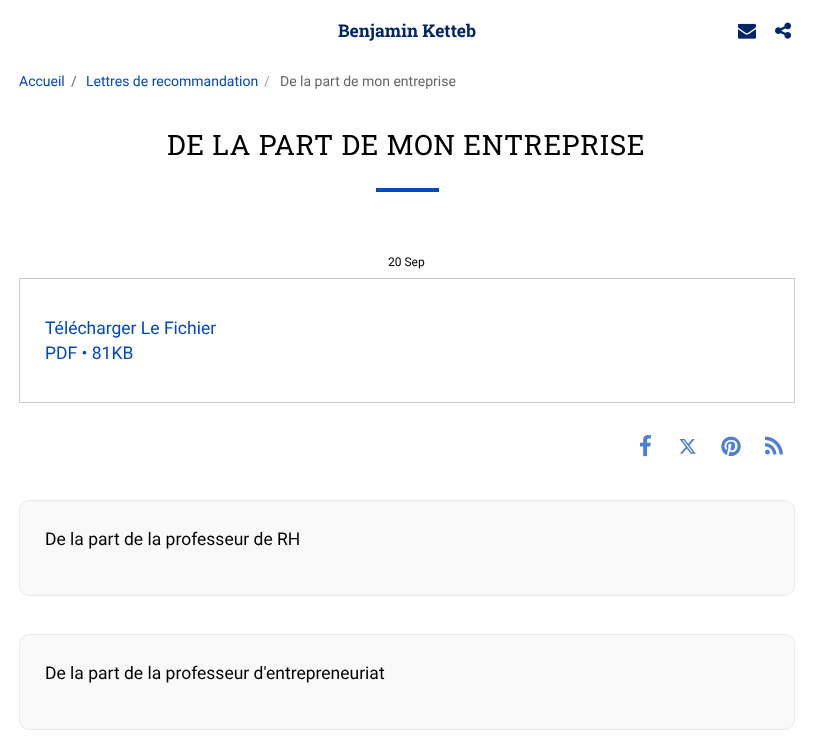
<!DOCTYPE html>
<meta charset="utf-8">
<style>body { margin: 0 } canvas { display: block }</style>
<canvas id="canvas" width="813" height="756"></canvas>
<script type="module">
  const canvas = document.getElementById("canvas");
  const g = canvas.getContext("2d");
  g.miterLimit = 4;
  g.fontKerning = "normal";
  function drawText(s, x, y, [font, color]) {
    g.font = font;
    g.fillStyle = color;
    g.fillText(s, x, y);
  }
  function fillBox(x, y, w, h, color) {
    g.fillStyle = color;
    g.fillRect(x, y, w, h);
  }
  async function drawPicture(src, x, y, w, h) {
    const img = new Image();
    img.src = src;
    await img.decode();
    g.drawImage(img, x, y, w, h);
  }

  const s1 = ["bold 17.5px Roboto Slab", "#002666"];
  const s2 = ["14px Roboto", "#0048C0"];
  const s3 = ["14px Roboto", "#666666"];
  const s4 = ["14px Roboto", "#A3A3A3"];
  const s5 = ["28px Roboto Slab", "#000000"];
  const s6 = ["12px Roboto", "#000000"];
  const s7 = ["17.5px Roboto", "#0048C0"];
  const s8 = ["17.5px Roboto", "#000000"];

  fillBox(0, 0, 813, 756, "#FFFFFF");
  drawText("Benjamin Ketteb", 338, 37, s1);
  await drawPicture("pic1.png", 738, 23, 18, 16);
  await drawPicture("pic2.png", 775, 22, 16, 17);
  drawText("Accueil", 19, 86, s2);
  drawText("/", 71, 86, s3);
  drawText("Lettres de recommandation", 86, 86, s2);
  drawText("/", 264, 86, s4);
  drawText("De la part de mon entreprise", 280, 86, s3);
  g.letterSpacing = "0.6px";
  drawText("DE LA PART DE MON ENTREPRISE", 167, 155, s5);
  fillBox(376, 188, 63, 4, "#0048C0");
  g.letterSpacing = "0px";
  drawText("20 Sep", 388, 266, s6);
  g.strokeStyle = "#CCCCCC";
  g.strokeRect(19.5, 278.5, 775, 124);
  drawText("Télécharger Le Fichier", 45, 334, s7);
  drawText("PDF • 81KB", 45, 359, s7);
  await drawPicture("pic3.png", 639, 435, 12, 22);
  await drawPicture("pic4.png", 679, 439, 17, 15);
  await drawPicture("pic5.png", 721, 436, 20, 21);
  await drawPicture("pic6.png", 765, 436, 18, 19);
  g.fillStyle = "#F9F9F9";
  g.beginPath();
  g.roundRect(19.5, 500.5, 775, 95, 9.5);
  g.fill();
  g.strokeStyle = "#EBEBEB";
  g.stroke();
  drawText("De la part de la professeur de RH", 45, 545, s8);
  g.fillStyle = "#F9F9F9";
  g.beginPath();
  g.roundRect(19.5, 634.5, 775, 95, 9.5);
  g.fill();
  g.stroke();
  drawText("De la part de la professeur d'entrepreneuriat", 45, 679, s8);
</script>
